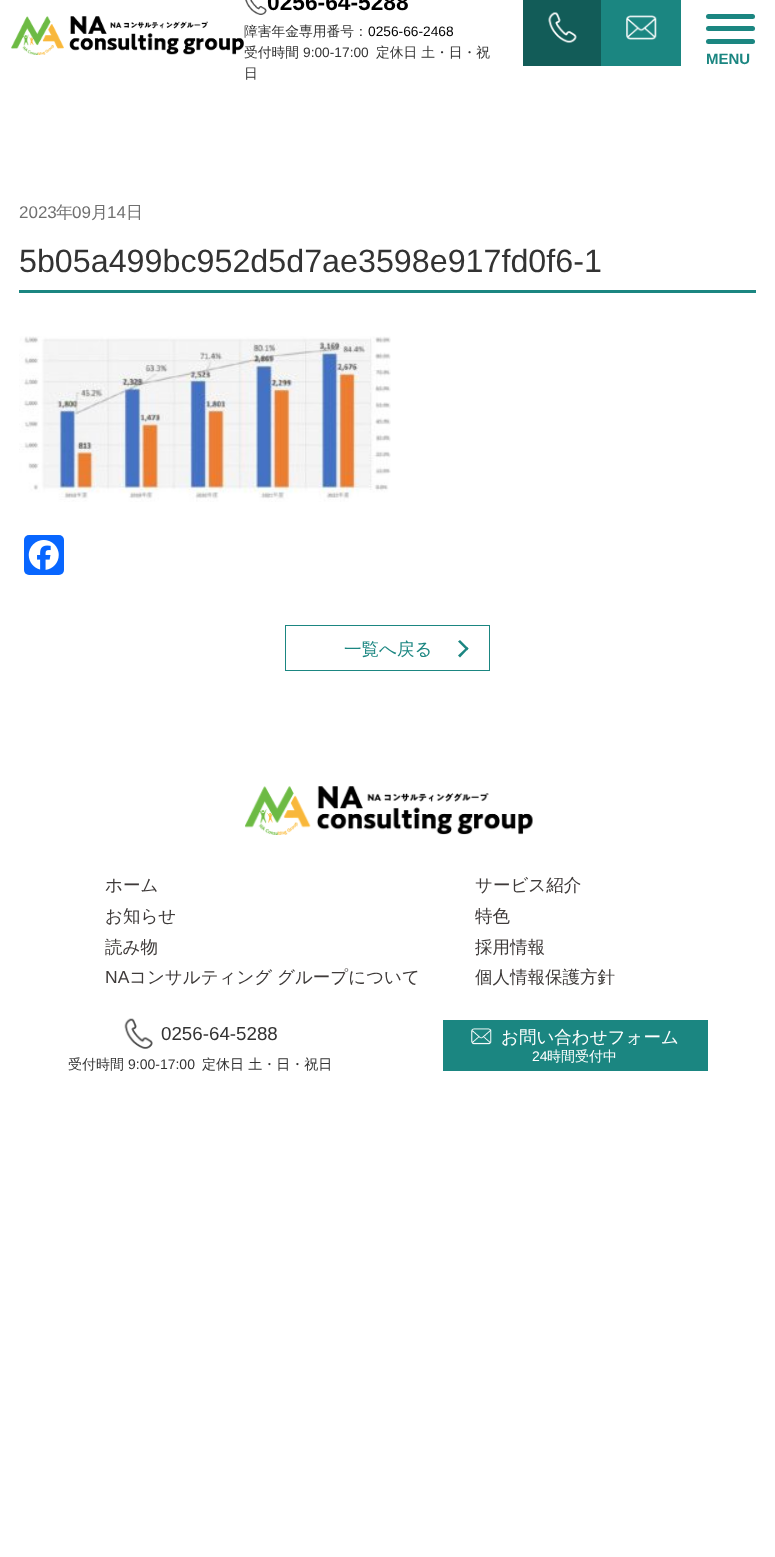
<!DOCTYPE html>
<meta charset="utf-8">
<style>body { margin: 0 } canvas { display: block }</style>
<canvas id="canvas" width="775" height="1557"></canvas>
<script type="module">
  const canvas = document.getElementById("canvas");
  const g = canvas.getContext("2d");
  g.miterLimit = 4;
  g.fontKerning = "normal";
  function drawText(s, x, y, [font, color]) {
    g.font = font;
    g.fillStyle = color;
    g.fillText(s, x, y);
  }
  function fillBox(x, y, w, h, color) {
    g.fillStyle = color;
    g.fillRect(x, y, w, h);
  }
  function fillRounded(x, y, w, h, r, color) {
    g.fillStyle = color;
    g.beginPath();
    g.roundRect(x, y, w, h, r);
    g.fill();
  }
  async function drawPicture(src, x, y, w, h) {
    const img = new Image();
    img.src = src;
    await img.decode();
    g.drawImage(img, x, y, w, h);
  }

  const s1 = ["bold 22.75px Liberation Sans", "#000000"];
  const s2 = ["500 13.75px WenQuanYi Zen Hei", "#333333"];
  const s3 = ["13.75px Liberation Sans", "#000000"];
  const s4 = ["13.75px Liberation Sans", "#333333"];
  const s5 = ["bold 15px Liberation Sans", "#1B8681"];
  const s6 = ["17px Liberation Sans", "#707070"];
  const s7 = ["500 17px WenQuanYi Zen Hei", "#707070"];
  const s8 = ["32.25px Liberation Sans", "#333333"];
  const s9 = ["500 17.5px WenQuanYi Zen Hei", "#1B8681"];
  const s10 = ["500 17.5px WenQuanYi Zen Hei", "#3E3A39"];
  const s11 = ["17.5px Liberation Sans", "#3E3A39"];
  const s12 = ["18.75px Liberation Sans", "#333333"];
  const s13 = ["500 14px WenQuanYi Zen Hei", "#333333"];
  const s14 = ["14px Liberation Sans", "#333333"];
  const s15 = ["500 17.5px WenQuanYi Zen Hei", "#FFFFFF"];
  const s16 = ["14px Liberation Sans", "#FFFFFF"];
  const s17 = ["500 14px WenQuanYi Zen Hei", "#FFFFFF"];

  fillBox(0, 0, 775, 1557, "#FFFFFF");
  await drawPicture("pic1.png", 11, 16, 233, 39);
  await drawPicture("pic2.png", 245, 0, 22, 15);
  drawText("0256-64-5288", 267, 10, s1);
  drawText("障害年金専用番号：", 244, 36, s2);
  drawText("0256-66-2468", 368, 36, s3);
  drawText("受付時間", 244, 57, s2);
  drawText("9:00-17:00", 303, 57, s4);
  drawText("定休日 土・日・祝", 376, 57, s2);
  drawText("日", 244, 78, s2);
  fillBox(523, 0, 78, 66, "#125C58");
  await drawPicture("pic3.png", 548, 12, 29, 31);
  fillBox(601, 0, 80, 66, "#1B8681");
  await drawPicture("pic4.png", 626, 15, 31, 25);
  fillRounded(706, 14, 49, 5, 2.5, "#1B8681");
  fillRounded(706, 26, 49, 5, 2.5, "#1B8681");
  fillRounded(706, 39, 49, 5, 2.5, "#1B8681");
  drawText("MENU", 706, 64, s5);
  drawText("2023", 19, 218, s6);
  drawText("年", 56, 218, s7);
  drawText("09", 72, 218, s6);
  drawText("月", 91, 218, s7);
  drawText("14", 107, 218, s6);
  drawText("日", 126, 218, s7);
  fillBox(19, 290, 737, 3, "#1B8681");
  drawText("5b05a499bc952d5d7ae3598e917fd0f6-1", 19, 272, s8);
  await drawPicture("pic5.png", 19, 336, 372, 166);
  fillRounded(24, 535, 40, 40, 5, "#0866FF");
  await drawPicture("pic6.png", 28, 540, 31, 30);
  g.strokeStyle = "#1B8681";
  g.strokeRect(285.5, 625.5, 204, 45);
  drawText("一覧へ戻る", 344, 655, s9);
  g.beginPath();
  g.moveTo(460, 640);
  g.lineTo(468.5, 648.5);
  g.lineTo(467, 650.5);
  g.lineTo(458, 641.5);
  g.closePath();
  g.fill();
  g.beginPath();
  g.moveTo(467, 647);
  g.lineTo(468.5, 648.5);
  g.lineTo(460, 657.5);
  g.lineTo(458, 655.5);
  g.closePath();
  g.fill();
  await drawPicture("pic7.png", 245, 786, 288, 49);
  drawText("ホーム", 105, 891, s10);
  drawText("お知らせ", 105, 922, s10);
  drawText("読み物", 105, 953, s10);
  drawText("NA", 105, 983, s11);
  drawText("コンサルティング", 129, 983, s10);
  drawText("グループについて", 277, 983, s10);
  drawText("サービス紹介", 475, 891, s10);
  drawText("特色", 475, 922, s10);
  drawText("採用情報", 475, 953, s10);
  drawText("個人情報保護方針", 475, 983, s10);
  await drawPicture("pic8.png", 124, 1018, 29, 31);
  drawText("0256-64-5288", 161, 1040, s12);
  drawText("受付時間", 68, 1069, s13);
  drawText("9:00-17:00", 128, 1069, s14);
  drawText("定休日 土・日・祝日", 202, 1069, s13);
  fillBox(443, 1020, 265, 51, "#1B8681");
  await drawPicture("pic9.png", 471, 1028, 21, 17);
  drawText("お問い合わせフォーム", 501, 1043, s15);
  drawText("24", 532, 1061, s16);
  drawText("時間受付中", 547, 1061, s17);
</script>
